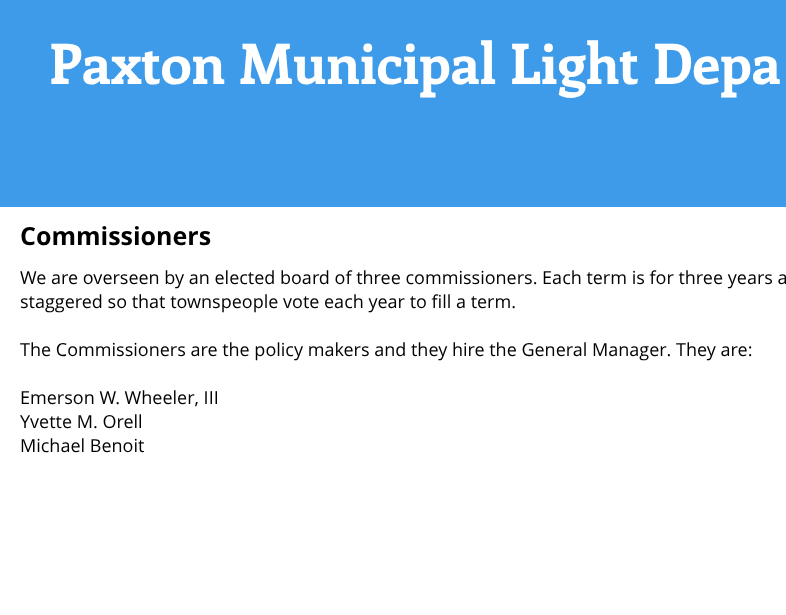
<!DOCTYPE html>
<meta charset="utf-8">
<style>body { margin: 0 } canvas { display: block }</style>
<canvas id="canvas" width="786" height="615"></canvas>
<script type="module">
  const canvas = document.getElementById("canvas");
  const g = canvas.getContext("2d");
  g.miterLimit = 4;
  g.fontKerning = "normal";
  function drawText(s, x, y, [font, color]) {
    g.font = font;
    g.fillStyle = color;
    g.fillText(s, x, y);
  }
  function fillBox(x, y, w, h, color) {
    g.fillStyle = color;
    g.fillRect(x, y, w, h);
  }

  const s1 = ["bold 56px Enriqueta", "#FFFFFF"];
  const s2 = ["bold 25px Open Sans", "#000000"];
  const s3 = ["18px Open Sans", "#000000"];

  fillBox(0, 0, 786, 615, "#3D9BE9");
  drawText("Paxton Municipal Light Depa", 49, 84, s1);
  fillBox(0, 207, 786, 408, "#FFFFFF");
  drawText("Commissioners", 20, 245, s2);
  drawText("We are overseen by an elected board of three commissioners. Each term is for three years a", 20, 284, s3);
  drawText("staggered so that townspeople vote each year to fill a term.", 20, 308, s3);
  drawText("The Commissioners are the policy makers and they hire the General Manager. They are:", 20, 356, s3);
  drawText("Emerson W. Wheeler, III", 20, 404, s3);
  drawText("Yvette M. Orell", 20, 428, s3);
  drawText("Michael Benoit", 20, 452, s3);
</script>
